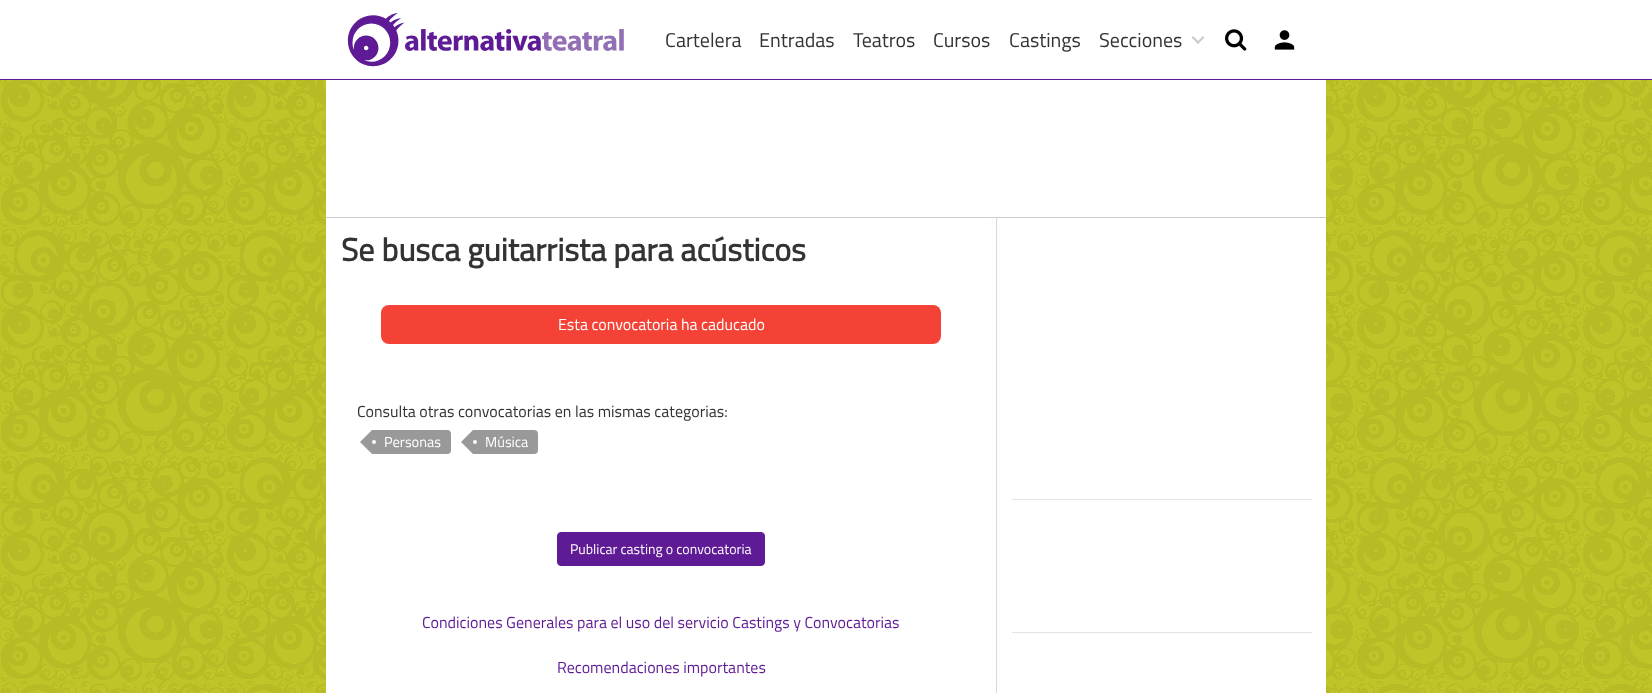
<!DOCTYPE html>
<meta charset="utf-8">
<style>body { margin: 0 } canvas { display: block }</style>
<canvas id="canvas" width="1652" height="693"></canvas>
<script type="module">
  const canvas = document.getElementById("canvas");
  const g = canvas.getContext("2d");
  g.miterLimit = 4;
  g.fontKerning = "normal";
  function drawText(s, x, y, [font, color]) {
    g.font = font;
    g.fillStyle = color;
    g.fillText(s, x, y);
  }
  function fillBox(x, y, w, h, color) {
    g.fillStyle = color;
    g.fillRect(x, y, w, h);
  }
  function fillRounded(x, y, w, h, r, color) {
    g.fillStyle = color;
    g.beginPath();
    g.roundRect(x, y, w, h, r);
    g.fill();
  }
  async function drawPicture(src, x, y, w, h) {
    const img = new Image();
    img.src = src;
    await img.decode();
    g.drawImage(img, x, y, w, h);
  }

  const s1 = ["20px Titillium Web", "#333333"];
  const s2 = ["bold 32px Titillium Web", "#333333"];
  const s3 = ["16px Titillium Web", "#FFFFFF"];
  const s4 = ["16px Titillium Web", "#333333"];
  const s5 = ["14.5px Titillium Web", "#FFFFFF"];
  const s6 = ["14px Titillium Web", "#FFFFFF"];
  const s7 = ["16px Titillium Web", "#5F1B96"];

  fillBox(0, 0, 1652, 693, "#FFFFFF");
  await drawPicture("pic1.png", 0, 80, 1652, 613);
  fillBox(0, 79, 1652, 1, "#5F1B96");
  await drawPicture("pic2.png", 347, 13, 277, 54);
  drawText("Cartelera", 665, 47, s1);
  drawText("Entradas", 759, 47, s1);
  drawText("Teatros", 853, 47, s1);
  drawText("Cursos", 933, 47, s1);
  drawText("Castings", 1009, 47, s1);
  drawText("Secciones", 1099, 47, s1);
  g.fillStyle = "#C9CBC4";
  g.beginPath();
  g.moveTo(1193, 36);
  g.lineTo(1199.5, 42.5);
  g.lineTo(1198, 44);
  g.lineTo(1191.5, 37.5);
  g.closePath();
  g.fill();
  g.beginPath();
  g.moveTo(1196.5, 42.5);
  g.lineTo(1203, 36);
  g.lineTo(1204.5, 37.5);
  g.lineTo(1198, 44);
  g.closePath();
  g.fill();
  await drawPicture("pic3.png", 1225, 29, 22, 22);
  await drawPicture("pic4.png", 1274, 30, 21, 20);
  await drawPicture("pic5.png", 326, 218, 1000, 475);
  fillBox(326, 80, 1000, 137, "#FFFFFF");
  fillBox(326, 217, 1000, 1, "#CCCCCC");
  drawText("Se busca guitarrista para acústicos", 341, 261, s2);
  fillRounded(381, 305, 560, 39, 8, "#F44336");
  drawText("Esta convocatoria ha caducado", 558, 330, s3);
  drawText("Consulta otras convocatorias en las mismas categorias:", 357, 417, s4);
  g.fillStyle = "#999999";
  g.beginPath();
  g.roundRect(372, 430, 79, 24, [0, 4, 4, 0]);
  g.fill();
  g.beginPath();
  g.moveTo(372, 430);
  g.lineTo(372, 454);
  g.lineTo(360, 442);
  g.closePath();
  g.fill();
  g.fillStyle = "#FFFFFF";
  g.beginPath();
  g.arc(374, 442, 2, 0, Math.PI * 2);
  g.fill();
  drawText("Personas", 384, 447, s5);
  g.fillStyle = "#999999";
  g.beginPath();
  g.roundRect(473, 430, 65, 24, [0, 4, 4, 0]);
  g.fill();
  g.beginPath();
  g.moveTo(473, 430);
  g.lineTo(473, 454);
  g.lineTo(461, 442);
  g.closePath();
  g.fill();
  g.fillStyle = "#FFFFFF";
  g.beginPath();
  g.arc(475, 442, 2, 0, Math.PI * 2);
  g.fill();
  drawText("Música", 485, 447, s5);
  g.fillStyle = "#5F1B96";
  g.beginPath();
  g.roundRect(557.5, 532.5, 207, 33, 3.5);
  g.fill();
  g.strokeStyle = "#5F1B96";
  g.stroke();
  drawText("Publicar casting o convocatoria", 570, 554, s6);
  drawText("Condiciones Generales para el uso del servicio Castings y Convocatorias", 422, 628, s7);
  drawText("Recomendaciones importantes", 557, 673, s7);
  fillBox(1012, 499, 300, 1, "#E4E4E4");
  fillBox(1012, 632, 300, 1, "#E4E4E4");
</script>
